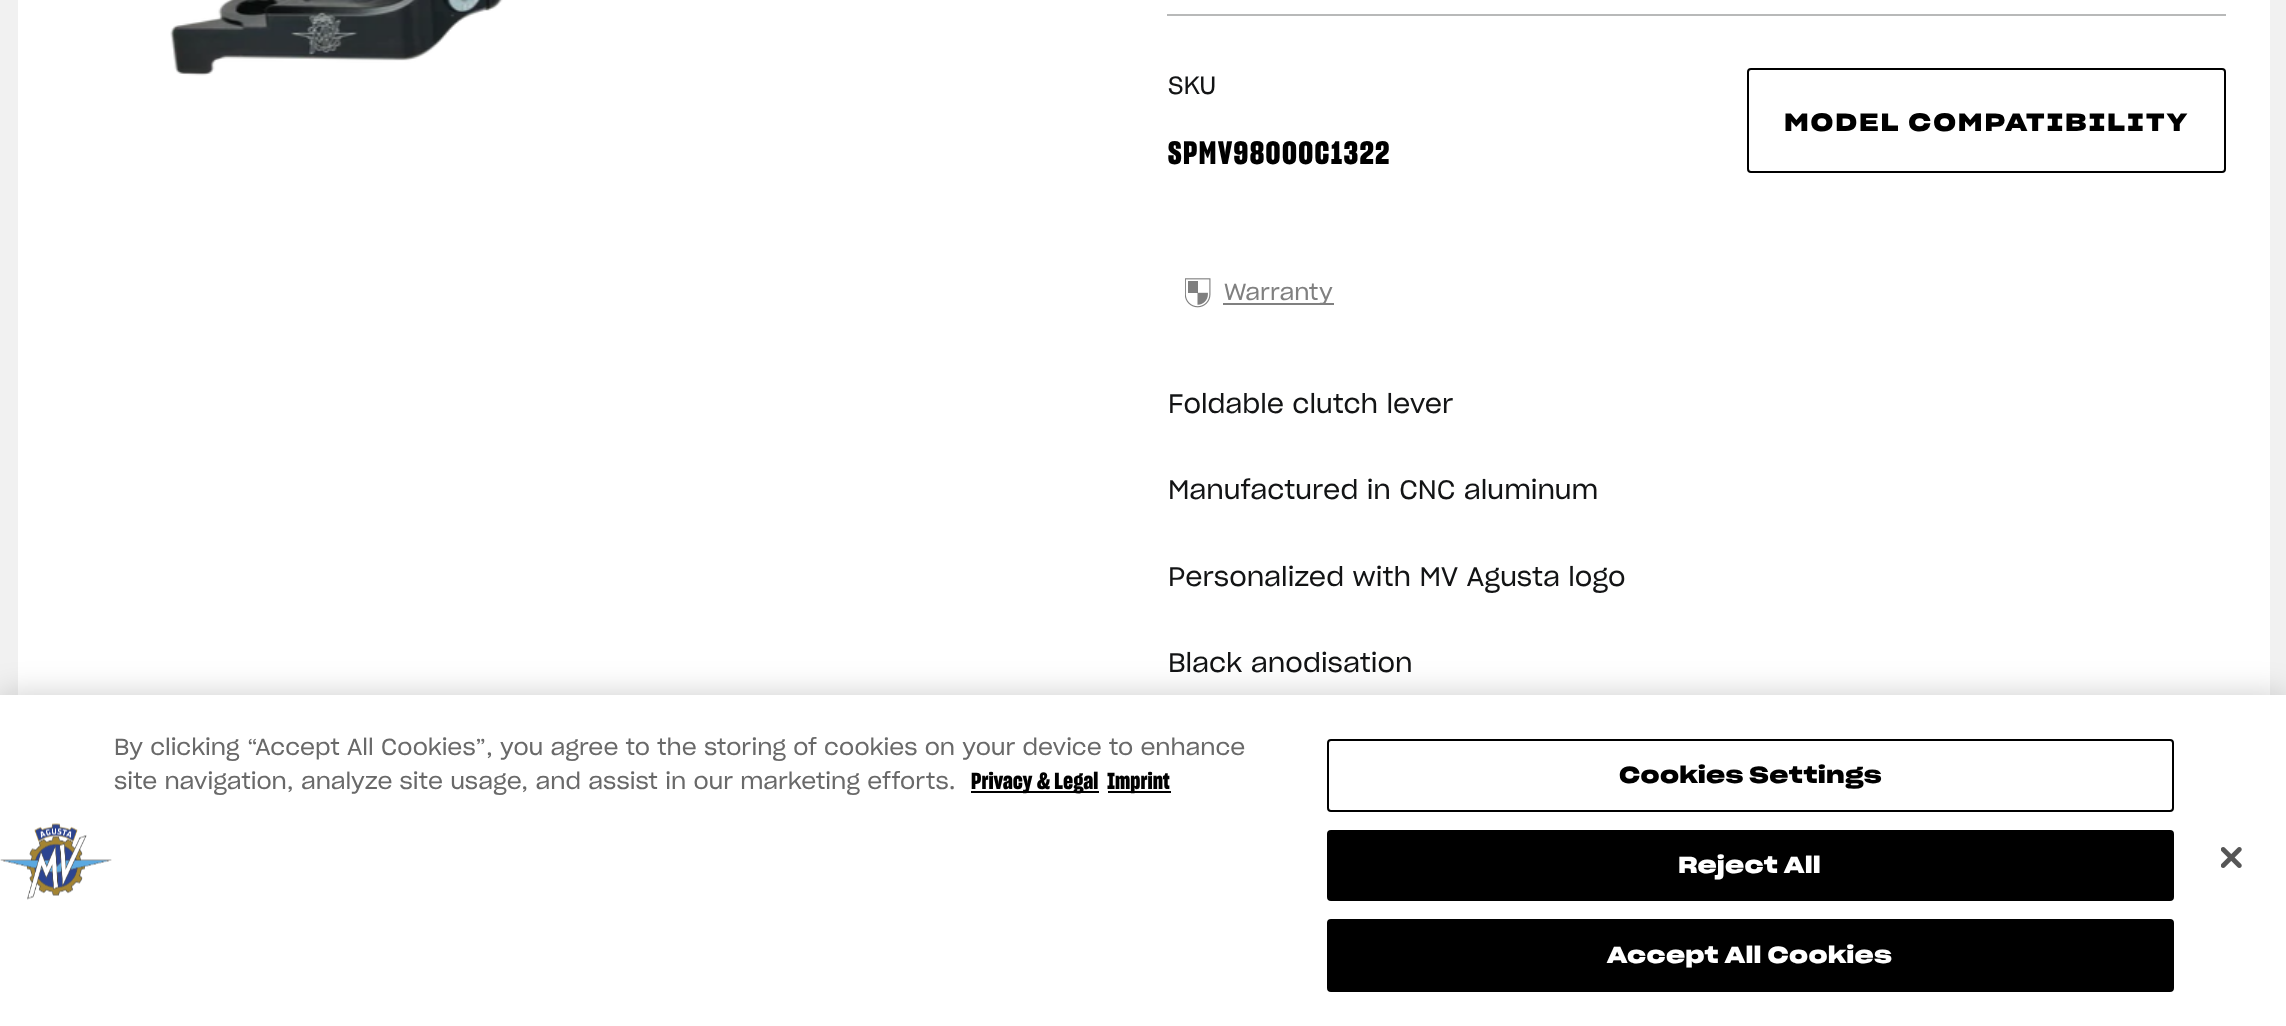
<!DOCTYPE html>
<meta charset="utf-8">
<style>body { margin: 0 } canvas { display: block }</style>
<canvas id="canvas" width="2286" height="1026"></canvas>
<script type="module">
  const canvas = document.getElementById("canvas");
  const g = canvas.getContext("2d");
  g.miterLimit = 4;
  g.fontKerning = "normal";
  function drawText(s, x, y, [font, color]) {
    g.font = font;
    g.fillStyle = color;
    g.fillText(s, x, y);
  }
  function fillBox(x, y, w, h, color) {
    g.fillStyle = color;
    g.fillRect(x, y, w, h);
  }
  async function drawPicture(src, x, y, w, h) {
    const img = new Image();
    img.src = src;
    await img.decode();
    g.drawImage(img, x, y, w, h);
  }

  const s1 = ["24.5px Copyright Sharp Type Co", "#131415"];
  const s2 = ["bold 31.5px Copyright Sharp Type Co", "#000000"];
  const s3 = ["600 24.5px Copyright Sharp Type Co", "#000000"];
  const s4 = ["22.75px Copyright Sharp Type Co", "#808080"];
  const s5 = ["26.25px Copyright Sharp Type Co", "#131415"];
  const s6 = ["22.75px Copyright Sharp Type Co", "#696969"];
  const s7 = ["bold 22.75px Copyright Sharp Type Co", "#000000"];
  const s8 = ["600 22.75px Copyright Sharp Type Co", "#000000"];
  const s9 = ["600 22.75px Copyright Sharp Type Co", "#FFFFFF"];

  fillBox(0, 0, 2286, 1026, "#F1F1F1");
  fillBox(18, 0, 2252, 695, "#FFFFFF");
  await drawPicture("pic1.png", 170, 0, 333, 76);
  fillBox(1167, 14, 1059, 2, "#B8B9B9");
  drawText("SKU", 1168, 94, s1);
  g.letterSpacing = "1.4px";
  drawText("SPMV98000C1322", 1168, 164, s2);
  g.beginPath();
  g.roundRect(1748, 69, 477, 103, 3);
  g.strokeStyle = "#000000";
  g.lineWidth = 2;
  g.stroke();
  g.letterSpacing = "1.9px";
  drawText("MODEL COMPATIBILITY", 1784, 131, s3);
  await drawPicture("pic2.png", 1185, 278, 26, 30);
  fillBox(1223, 303, 111, 2, "#808080");
  g.letterSpacing = "0px";
  drawText("Warranty", 1224, 300, s4);
  drawText("Foldable clutch lever", 1168, 413, s5);
  drawText("Manufactured in CNC aluminum", 1168, 499, s5);
  drawText("Personalized with MV Agusta logo", 1168, 586, s5);
  drawText("Black anodisation", 1168, 672, s5);
  g.fillStyle = "rgba(0, 0, 0, 0.2)";
  g.filter = "blur(16px)";
  g.beginPath();
  g.rect(0, 695, 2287, 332);
  g.fill();
  g.filter = "none";
  fillBox(0, 695, 2286, 331, "#FFFFFF");
  drawText("By clicking “Accept All Cookies”, you agree to the storing of cookies on your device to enhance", 114, 755, s6);
  drawText("site navigation, analyze site usage, and assist in our marketing efforts.", 114, 789, s6);
  fillBox(971, 791, 128, 2, "#000000");
  drawText("Privacy & Legal", 971, 789, s7);
  fillBox(1108, 791, 63, 2, "#000000");
  drawText("Imprint", 1107, 789, s7);
  await drawPicture("pic3.png", 0, 823, 112, 77);
  g.beginPath();
  g.roundRect(1328, 740, 845, 71, 3);
  g.stroke();
  g.letterSpacing = "0.25px";
  drawText("Cookies Settings", 1619, 783, s8);
  g.beginPath();
  g.roundRect(1328, 831, 845, 69, 3);
  g.fill();
  g.stroke();
  drawText("Reject All", 1678, 873, s9);
  g.fillStyle = "#000000";
  g.beginPath();
  g.roundRect(1328, 920, 845, 71, 3);
  g.fill();
  g.stroke();
  drawText("Accept All Cookies", 1607, 963, s9);
  await drawPicture("pic4.png", 2221, 847, 21, 21);
</script>
